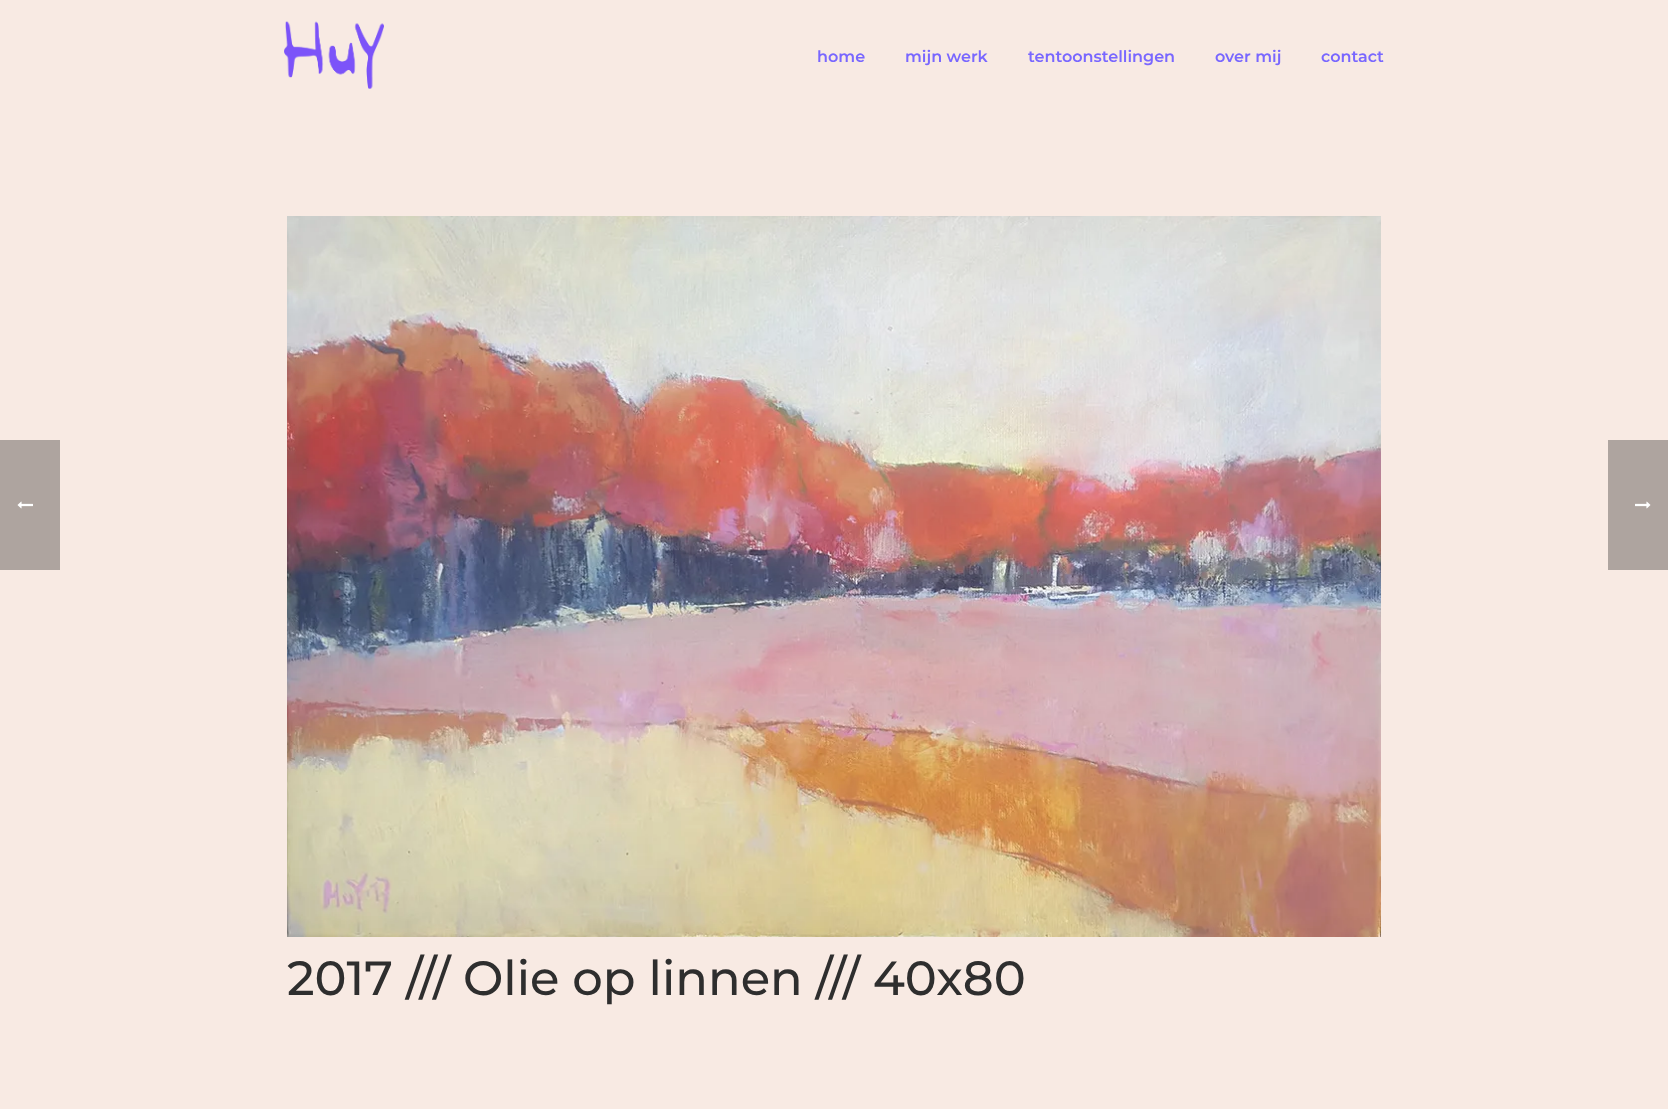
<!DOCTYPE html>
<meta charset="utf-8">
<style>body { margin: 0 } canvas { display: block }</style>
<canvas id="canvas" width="1668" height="1109"></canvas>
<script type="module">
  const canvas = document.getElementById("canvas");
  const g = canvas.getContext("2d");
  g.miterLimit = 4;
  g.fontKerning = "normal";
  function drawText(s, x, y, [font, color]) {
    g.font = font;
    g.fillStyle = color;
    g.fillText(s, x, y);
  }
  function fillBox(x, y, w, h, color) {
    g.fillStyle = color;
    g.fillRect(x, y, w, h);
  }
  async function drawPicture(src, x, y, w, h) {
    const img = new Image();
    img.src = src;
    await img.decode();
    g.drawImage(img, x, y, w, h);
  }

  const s1 = ["600 16px Montserrat", "#7967FF"];
  const s2 = ["500 48px Montserrat", "#2E2E2E"];

  fillBox(0, 0, 1668, 1109, "#F8EAE3");
  fillBox(0, 440, 60, 130, "#AEA49F");
  await drawPicture("pic1.png", 17, 501, 16, 8);
  await drawPicture("pic2.png", 284, 21, 100, 68);
  drawText("home", 817, 62, s1);
  drawText("mijn werk", 905, 62, s1);
  drawText("tentoonstellingen", 1028, 62, s1);
  drawText("over mij", 1215, 62, s1);
  drawText("contact", 1321, 62, s1);
  await drawPicture("pic3.png", 287, 216, 1094, 721);
  drawText("2017 /// Olie op linnen /// 40x80", 287, 995, s2);
  fillBox(1608, 440, 60, 130, "#AEA49F");
  await drawPicture("pic4.png", 1635, 501, 16, 8);
</script>
